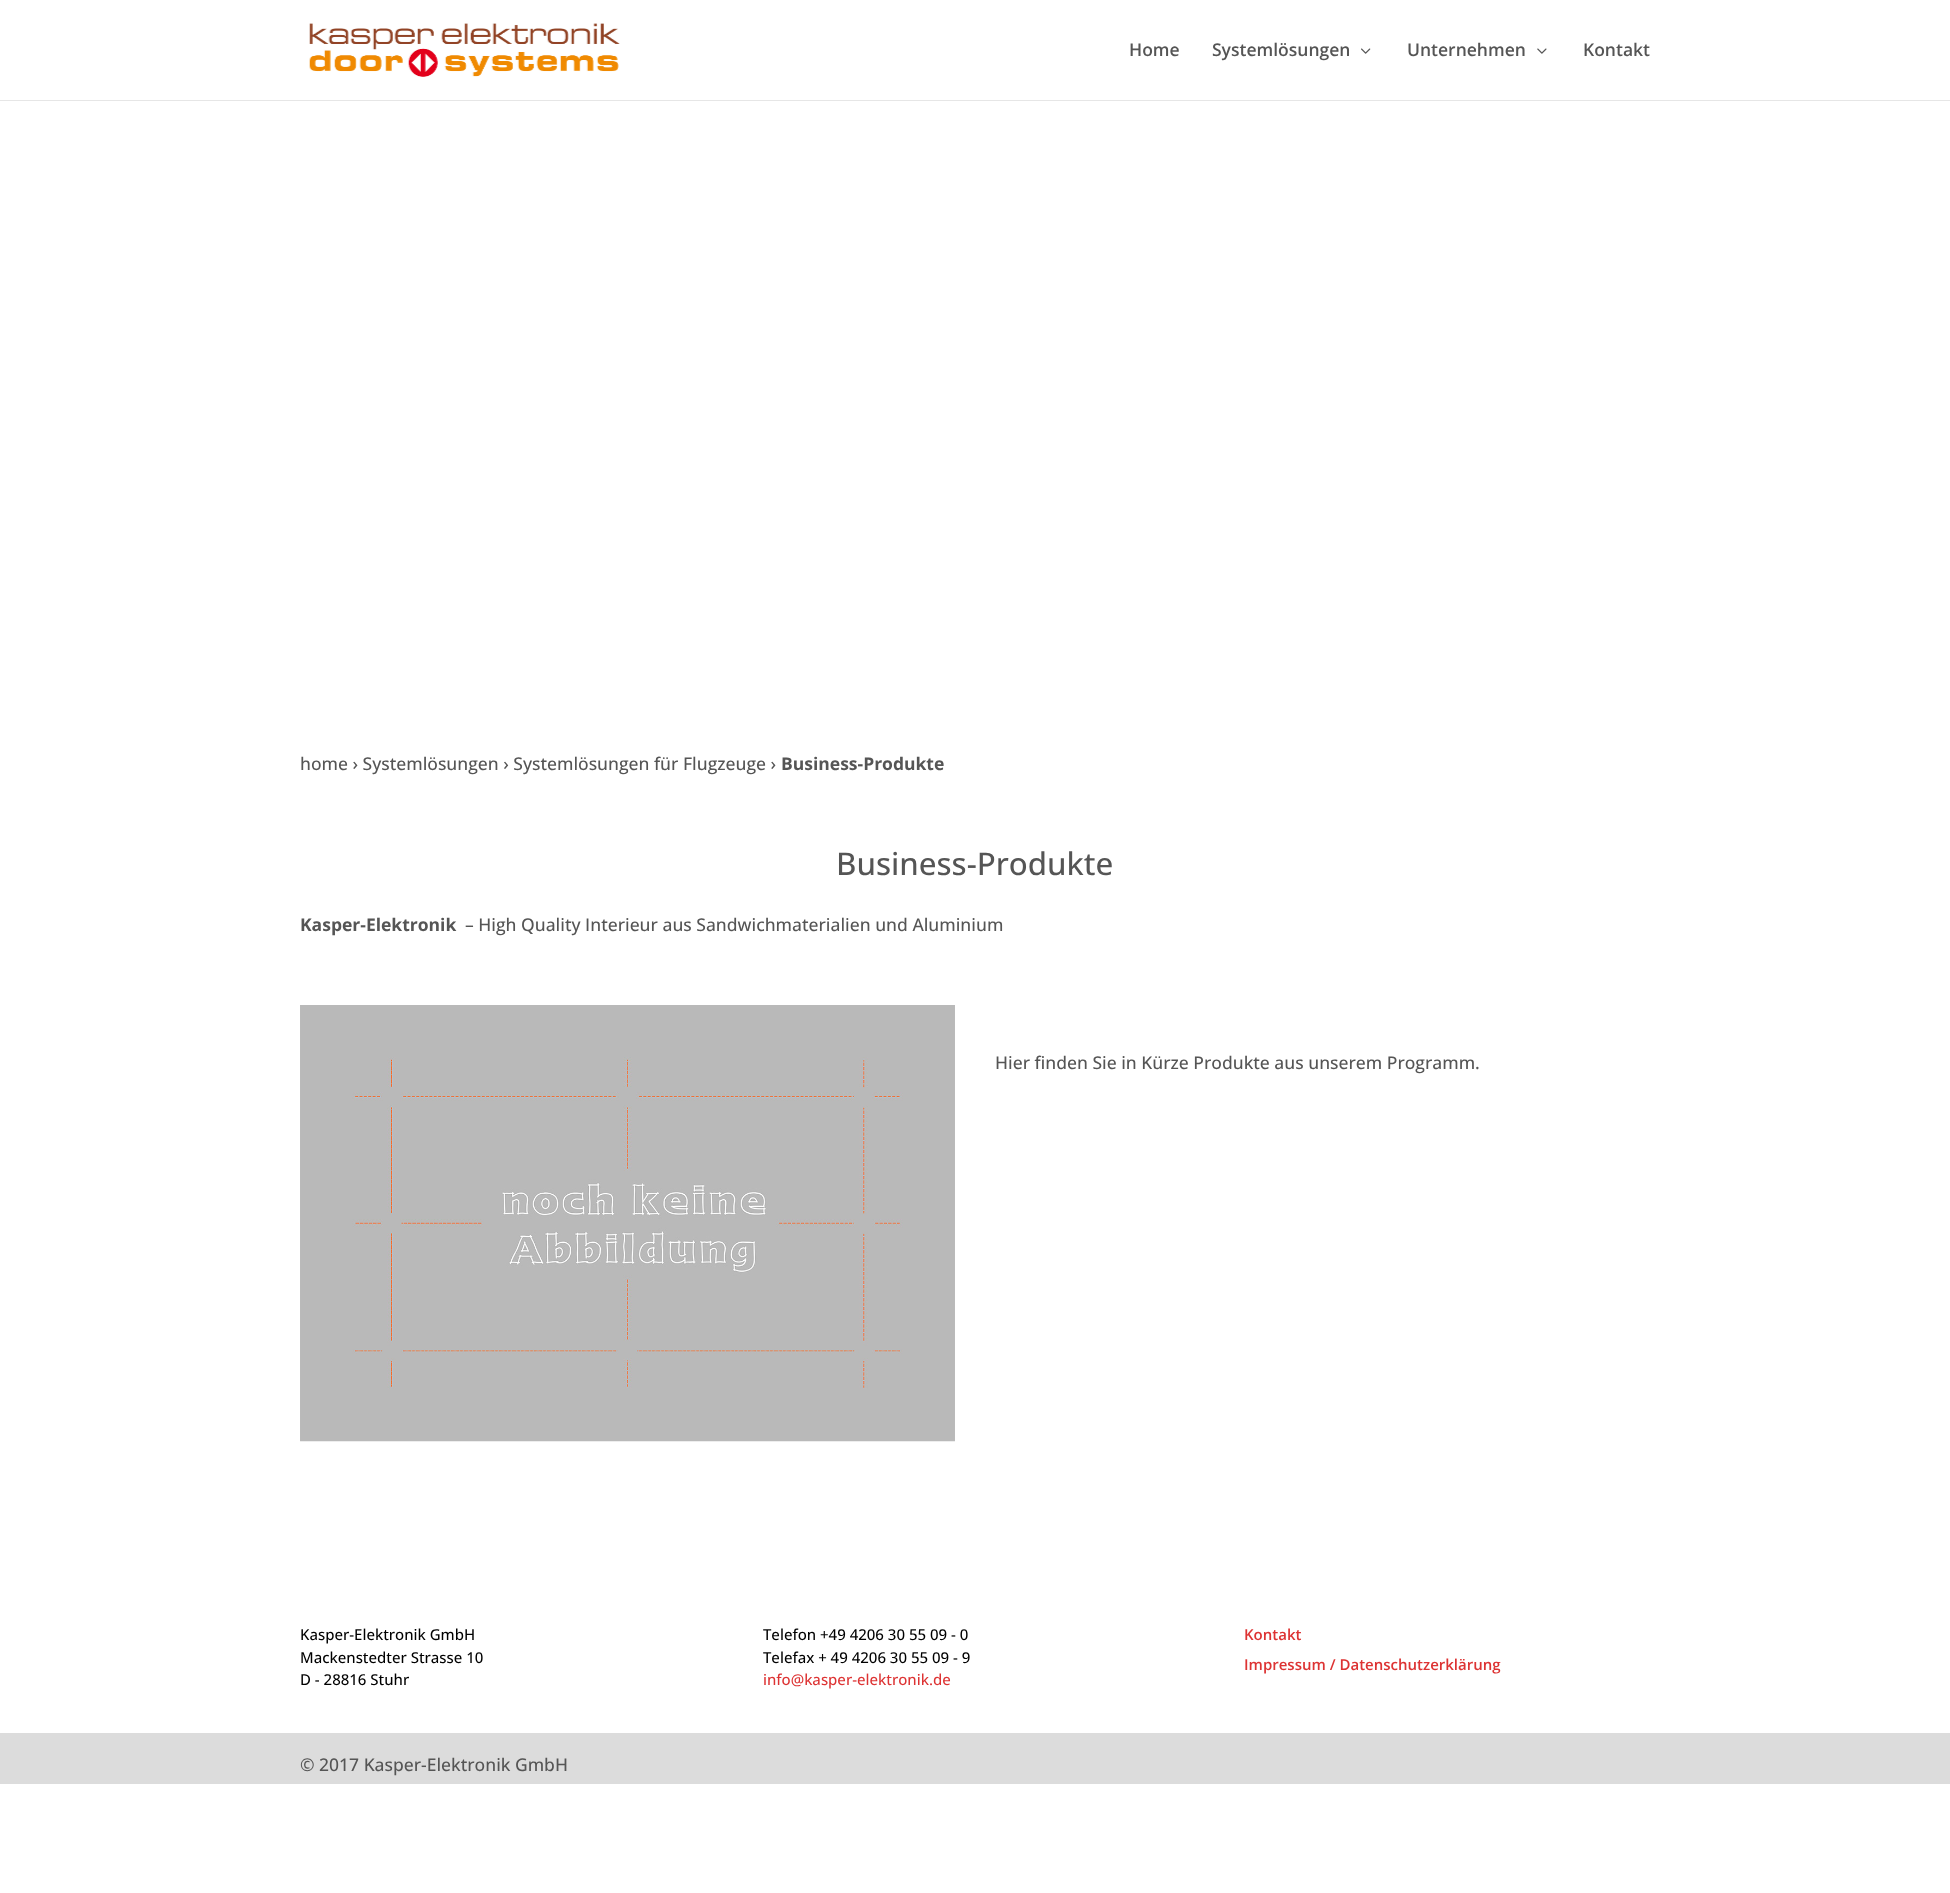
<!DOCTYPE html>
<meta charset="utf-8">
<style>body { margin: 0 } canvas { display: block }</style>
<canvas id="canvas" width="1950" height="1893"></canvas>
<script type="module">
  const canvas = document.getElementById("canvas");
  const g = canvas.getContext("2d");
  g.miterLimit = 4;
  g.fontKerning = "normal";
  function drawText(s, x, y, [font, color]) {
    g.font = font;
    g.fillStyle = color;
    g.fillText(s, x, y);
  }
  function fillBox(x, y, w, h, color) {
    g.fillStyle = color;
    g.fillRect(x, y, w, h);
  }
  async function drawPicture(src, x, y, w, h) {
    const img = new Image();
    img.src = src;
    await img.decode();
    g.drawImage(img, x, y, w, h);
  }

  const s1 = ["600 17.5px Open Sans", "#555555"];
  const s2 = ["500 17.5px Open Sans", "#555555"];
  const s3 = ["bold 17.5px Open Sans", "#555555"];
  const s4 = ["500 31.25px Open Sans", "#555555"];
  const s5 = ["500 15px Open Sans", "#000000"];
  const s6 = ["500 15px Open Sans", "#DD3333"];
  const s7 = ["600 15px Open Sans", "#DD3333"];

  fillBox(0, 0, 1950, 1893, "#FFFFFF");
  fillBox(0, 100, 1950, 1, "#E6E6E6");
  await drawPicture("pic1.png", 309, 23, 311, 54);
  drawText("Home", 1129, 56, s1);
  drawText("Systemlösungen", 1212, 56, s1);
  await drawPicture("pic2.png", 1361, 48, 10, 6);
  drawText("Unternehmen", 1407, 56, s1);
  await drawPicture("pic3.png", 1537, 48, 10, 6);
  drawText("Kontakt", 1583, 56, s1);
  drawText("home › Systemlösungen › Systemlösungen für Flugzeuge ›", 300, 770, s2);
  drawText("Business-Produkte", 781, 770, s3);
  drawText("Business-Produkte", 836, 875, s4);
  drawText("Kasper-Elektronik", 300, 931, s3);
  drawText("– High Quality Interieur aus Sandwichmaterialien und Aluminium", 465, 931, s2);
  await drawPicture("pic4.png", 300, 1005, 655, 437);
  drawText("Hier finden Sie in Kürze Produkte aus unserem Programm.", 995, 1069, s2);
  drawText("Kasper-Elektronik GmbH", 300, 1640, s5);
  drawText("Mackenstedter Strasse 10", 300, 1663, s5);
  drawText("D - 28816 Stuhr", 300, 1685, s5);
  drawText("Telefon +49 4206 30 55 09 - 0", 763, 1640, s5);
  drawText("Telefax + 49 4206 30 55 09 - 9", 763, 1663, s5);
  drawText("info@kasper-elektronik.de", 763, 1685, s6);
  drawText("Kontakt", 1244, 1640, s7);
  drawText("Impressum / Datenschutzerklärung", 1244, 1670, s7);
  fillBox(0, 1733, 1950, 51, "#DCDCDC");
  drawText("© 2017 Kasper-Elektronik GmbH", 300, 1771, s2);
</script>
